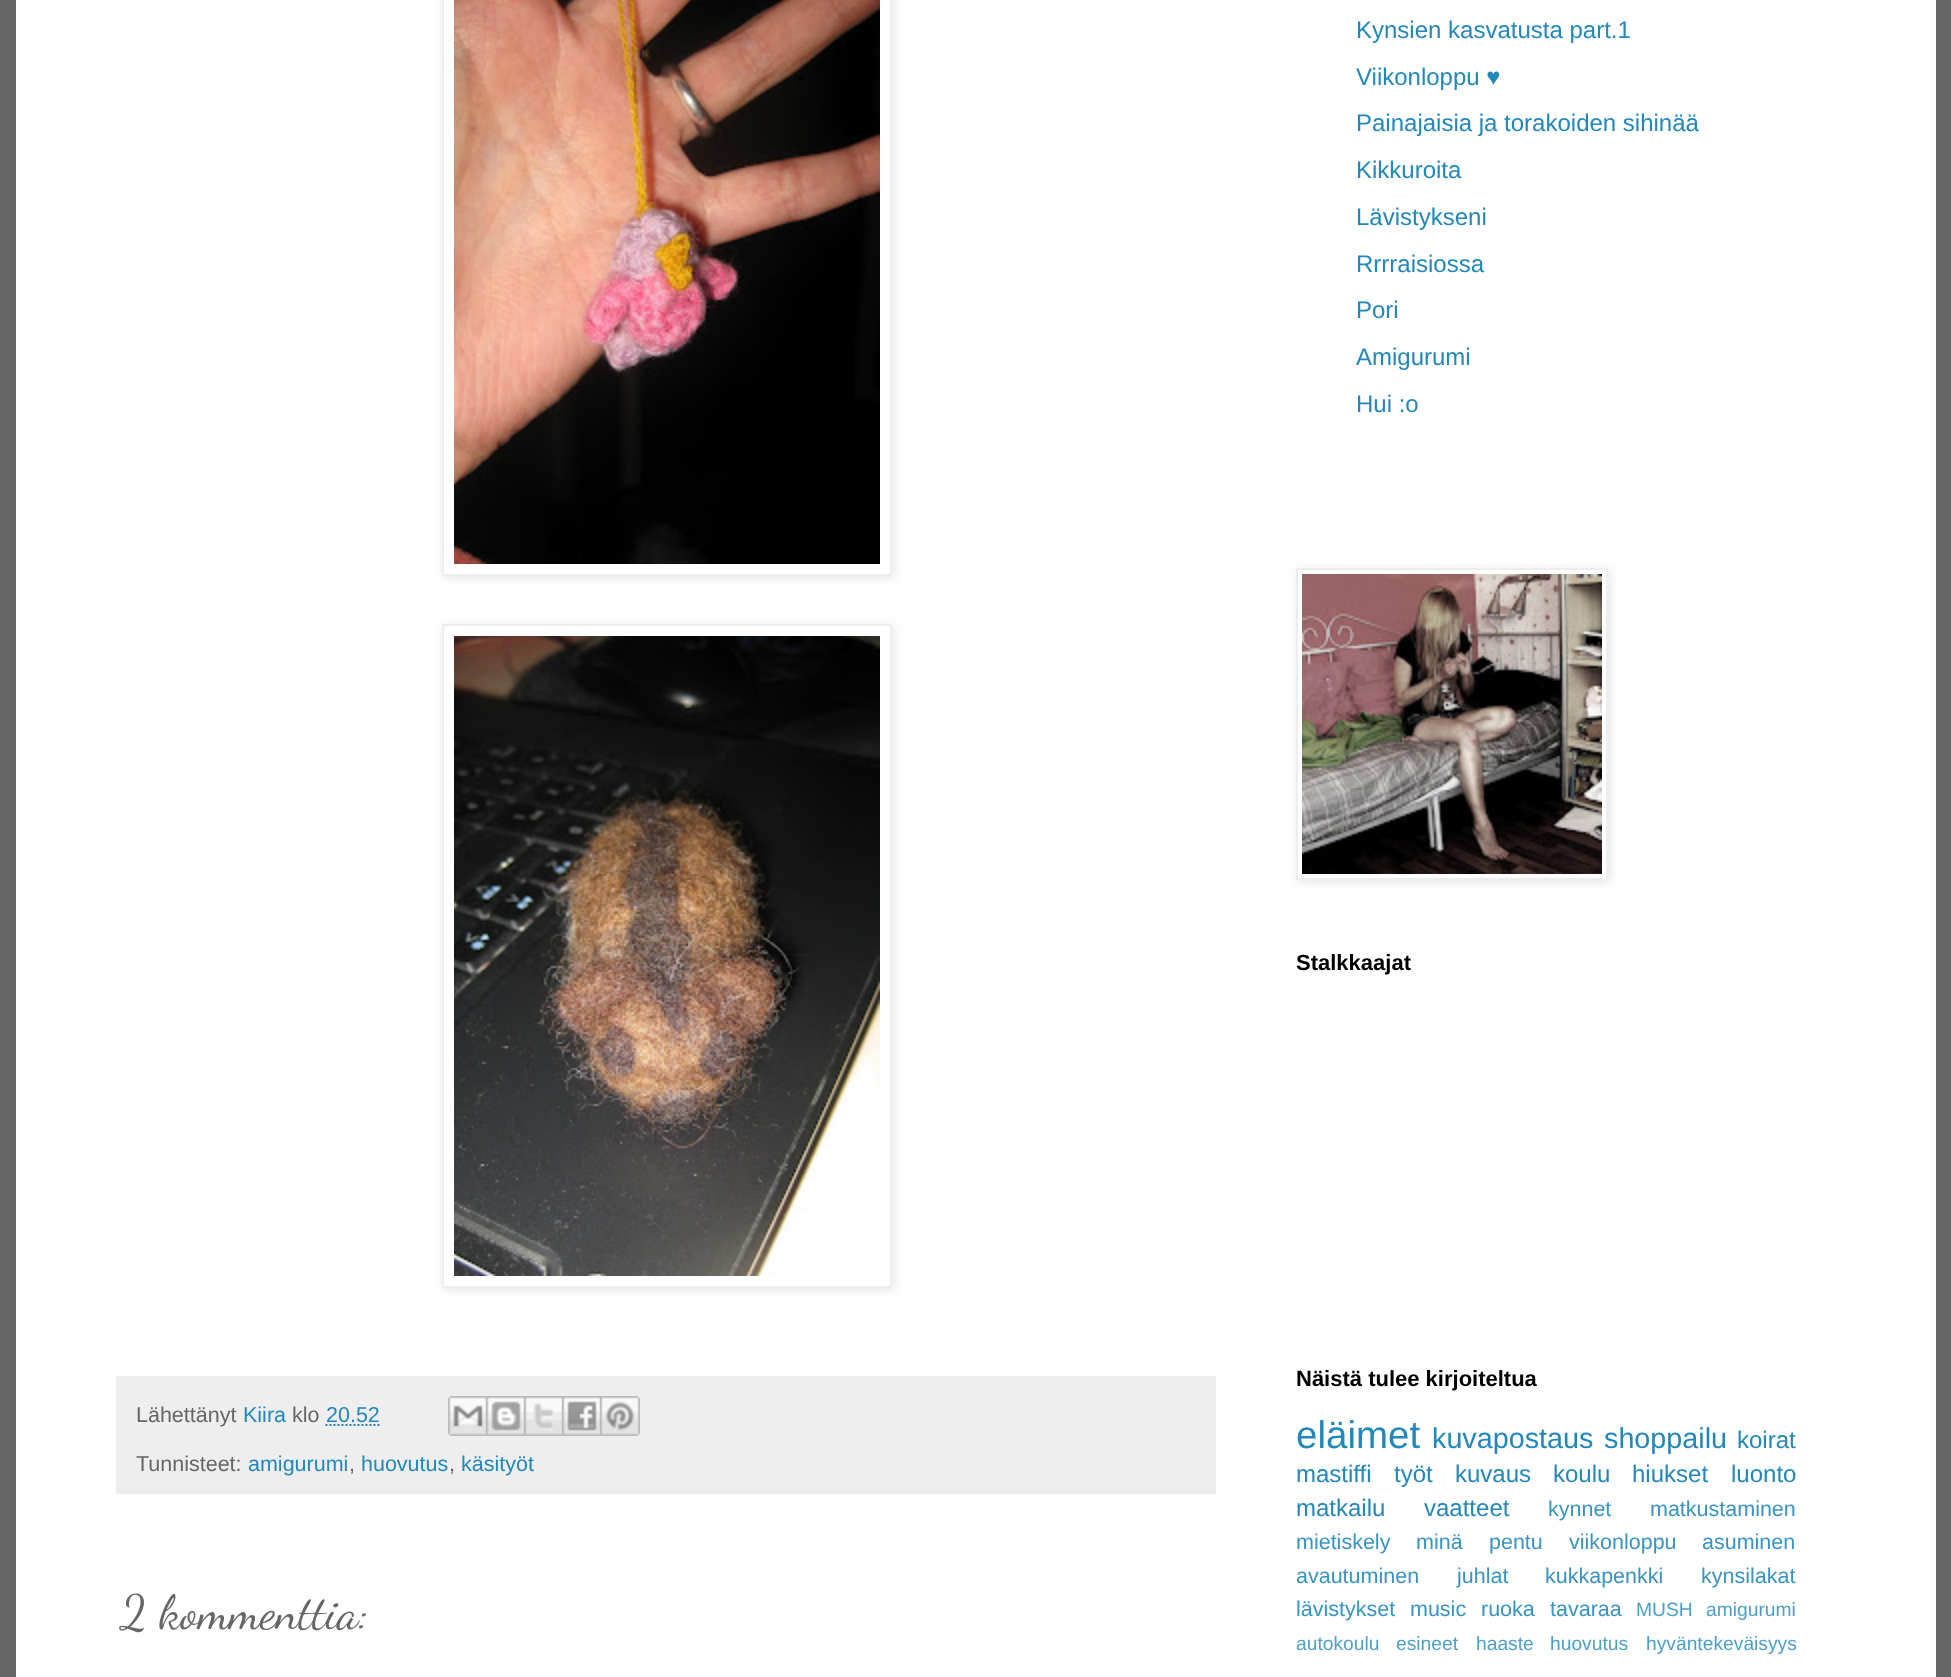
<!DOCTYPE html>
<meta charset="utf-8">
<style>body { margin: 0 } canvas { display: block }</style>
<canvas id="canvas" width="1951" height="1677"></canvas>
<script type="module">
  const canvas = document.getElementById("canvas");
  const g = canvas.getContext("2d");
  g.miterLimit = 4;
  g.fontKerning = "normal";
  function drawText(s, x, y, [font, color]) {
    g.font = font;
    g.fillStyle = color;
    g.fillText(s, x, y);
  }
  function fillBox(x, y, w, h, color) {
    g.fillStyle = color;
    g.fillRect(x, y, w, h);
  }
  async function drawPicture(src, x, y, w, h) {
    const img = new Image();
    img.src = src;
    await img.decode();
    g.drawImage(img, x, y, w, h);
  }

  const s1 = ["21.5px Liberation Sans", "#666666"];
  const s2 = ["21.5px Liberation Sans", "#2288BB"];
  const s3 = ["48px Dancing Script", "#666666"];
  const s4 = ["24px Liberation Sans", "#2288BB"];
  const s5 = ["bold 22px Liberation Sans", "#000000"];
  const s6 = ["38.5px Liberation Sans", "#2288BB"];
  const s7 = ["28.75px Liberation Sans", "#2288BB"];
  const s8 = ["21.5px Liberation Sans", "#3894C2"];
  const s9 = ["19.25px Liberation Sans", "#4EA0C9"];

  fillBox(0, 0, 1951, 1677, "#666666");
  fillBox(16, 0, 1920, 1677, "#FFFFFF");
  g.save();
  g.beginPath();
  g.moveTo(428, 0);
  g.lineTo(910, 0);
  g.lineTo(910, 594);
  g.lineTo(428, 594);
  g.closePath();
  g.moveTo(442, -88);
  g.lineTo(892, -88);
  g.lineTo(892, 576);
  g.lineTo(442, 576);
  g.closePath();
  g.clip("evenodd");
  g.fillStyle = "rgba(0, 0, 0, 0.1)";
  g.filter = "blur(5px)";
  g.beginPath();
  g.rect(444, -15, 450, 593);
  g.fill();
  g.filter = "none";
  g.restore();
  g.strokeStyle = "#EEEEEE";
  g.lineWidth = 2;
  g.strokeRect(443, -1, 448, 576);
  await drawPicture("pic1.png", 454, 0, 426, 564);
  g.save();
  g.beginPath();
  g.moveTo(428, 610);
  g.lineTo(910, 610);
  g.lineTo(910, 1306);
  g.lineTo(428, 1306);
  g.closePath();
  g.moveTo(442, 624);
  g.lineTo(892, 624);
  g.lineTo(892, 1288);
  g.lineTo(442, 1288);
  g.closePath();
  g.clip("evenodd");
  g.fillStyle = "rgba(0, 0, 0, 0.1)";
  g.filter = "blur(5px)";
  g.beginPath();
  g.rect(444, 626, 450, 664);
  g.fill();
  g.filter = "none";
  g.restore();
  g.strokeRect(443, 625, 448, 662);
  await drawPicture("pic2.png", 454, 636, 426, 640);
  fillBox(116, 1376, 1100, 118, "#EEEEEE");
  drawText("Lähettänyt", 136, 1422, s1);
  drawText("Kiira", 243, 1422, s2);
  drawText("klo", 292, 1422, s1);
  drawText("20.52", 326, 1422, s2);
  g.beginPath();
  g.moveTo(325.5, 1425);
  g.lineTo(380, 1425);
  g.strokeStyle = "#2288BB";
  g.setLineDash([2, 2]);
  g.stroke();
  await drawPicture("pic3.png", 448, 1396, 38, 40);
  await drawPicture("pic4.png", 486, 1396, 38, 40);
  await drawPicture("pic5.png", 524, 1396, 38, 40);
  await drawPicture("pic6.png", 562, 1396, 38, 40);
  await drawPicture("pic7.png", 600, 1396, 40, 40);
  drawText("Tunnisteet:", 136, 1471, s1);
  drawText("amigurumi", 248, 1471, s2);
  drawText(",", 349, 1471, s1);
  drawText("huovutus", 361, 1471, s2);
  drawText(",", 449, 1471, s1);
  drawText("käsityöt", 461, 1471, s2);
  drawText("2 kommenttia:", 120, 1628, s3);
  drawText("Kynsien kasvatusta part.1", 1356, 38, s4);
  drawText("Viikonloppu ♥", 1356, 85, s4);
  drawText("Painajaisia ja torakoiden sihinää", 1356, 131, s4);
  drawText("Kikkuroita", 1356, 178, s4);
  drawText("Lävistykseni", 1356, 225, s4);
  drawText("Rrrraisiossa", 1356, 272, s4);
  drawText("Pori", 1356, 318, s4);
  drawText("Amigurumi", 1356, 365, s4);
  drawText("Hui :o", 1356, 412, s4);
  g.save();
  g.beginPath();
  g.moveTo(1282, 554);
  g.lineTo(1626, 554);
  g.lineTo(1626, 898);
  g.lineTo(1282, 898);
  g.closePath();
  g.moveTo(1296, 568);
  g.lineTo(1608, 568);
  g.lineTo(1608, 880);
  g.lineTo(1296, 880);
  g.closePath();
  g.clip("evenodd");
  g.fillStyle = "rgba(0, 0, 0, 0.1)";
  g.filter = "blur(5px)";
  g.beginPath();
  g.rect(1298, 570, 312, 312);
  g.fill();
  g.filter = "none";
  g.restore();
  g.strokeStyle = "#EEEEEE";
  g.setLineDash([]);
  g.strokeRect(1297, 569, 310, 310);
  await drawPicture("pic8.png", 1302, 574, 300, 300);
  drawText("Stalkkaajat", 1296, 970, s5);
  drawText("Näistä tulee kirjoiteltua", 1296, 1386, s5);
  drawText("eläimet", 1296, 1448, s6);
  drawText("kuvapostaus", 1432, 1448, s7);
  drawText("shoppailu", 1604, 1448, s7);
  drawText("koirat", 1737, 1448, s4);
  drawText("mastiffi", 1296, 1482, s4);
  drawText("työt", 1394, 1482, s4);
  drawText("kuvaus", 1455, 1482, s4);
  drawText("koulu", 1553, 1482, s4);
  drawText("hiukset", 1632, 1482, s4);
  drawText("luonto", 1731, 1482, s4);
  drawText("matkailu", 1296, 1516, s4);
  drawText("vaatteet", 1424, 1516, s4);
  drawText("kynnet", 1548, 1516, s8);
  drawText("matkustaminen", 1650, 1516, s8);
  drawText("mietiskely", 1296, 1549, s8);
  drawText("minä", 1416, 1549, s8);
  drawText("pentu", 1489, 1549, s8);
  drawText("viikonloppu", 1569, 1549, s8);
  drawText("asuminen", 1702, 1549, s8);
  drawText("avautuminen", 1296, 1583, s8);
  drawText("juhlat", 1457, 1583, s8);
  drawText("kukkapenkki", 1545, 1583, s8);
  drawText("kynsilakat", 1701, 1583, s8);
  drawText("lävistykset", 1296, 1616, s8);
  drawText("music", 1410, 1616, s8);
  drawText("ruoka", 1481, 1616, s8);
  drawText("tavaraa", 1550, 1616, s8);
  drawText("MUSH", 1636, 1616, s9);
  drawText("amigurumi", 1706, 1616, s9);
  drawText("autokoulu", 1296, 1650, s9);
  drawText("esineet", 1396, 1650, s9);
  drawText("haaste", 1476, 1650, s9);
  drawText("huovutus", 1550, 1650, s9);
  drawText("hyväntekeväisyys", 1646, 1650, s9);
</script>
